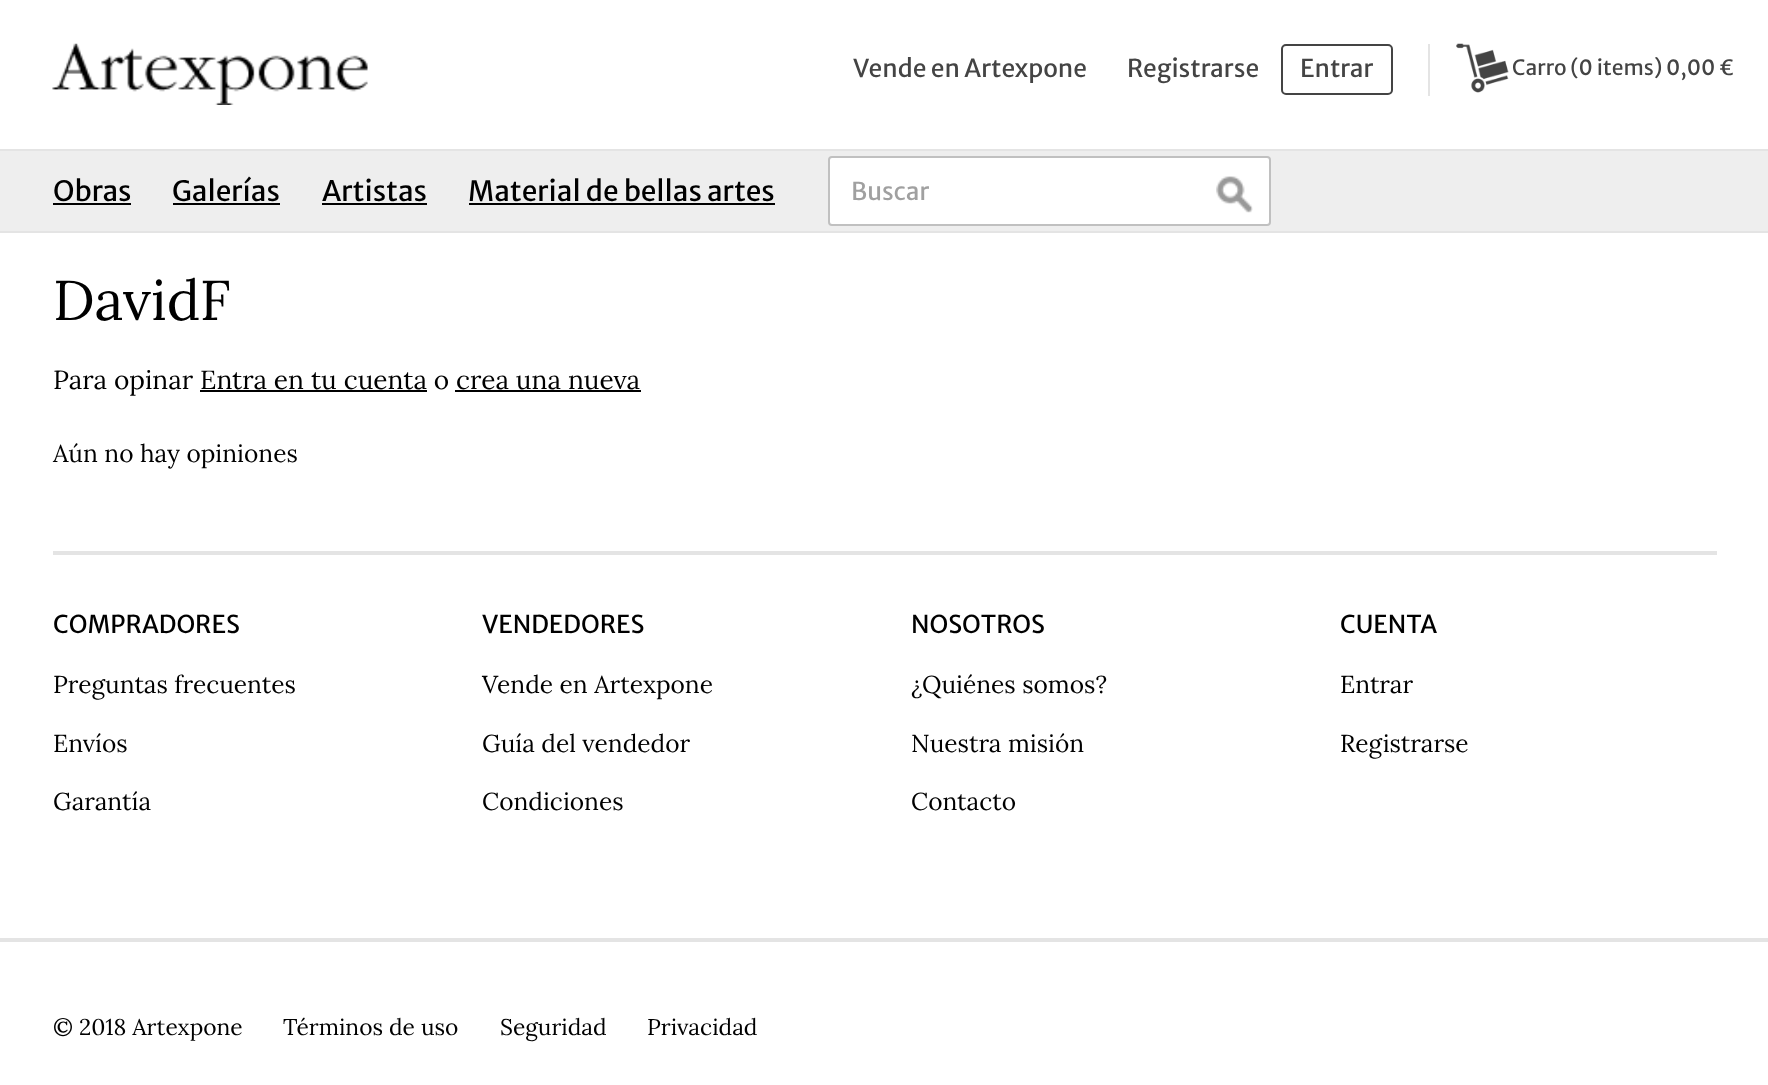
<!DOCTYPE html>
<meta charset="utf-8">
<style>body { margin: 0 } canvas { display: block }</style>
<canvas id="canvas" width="1768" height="1085"></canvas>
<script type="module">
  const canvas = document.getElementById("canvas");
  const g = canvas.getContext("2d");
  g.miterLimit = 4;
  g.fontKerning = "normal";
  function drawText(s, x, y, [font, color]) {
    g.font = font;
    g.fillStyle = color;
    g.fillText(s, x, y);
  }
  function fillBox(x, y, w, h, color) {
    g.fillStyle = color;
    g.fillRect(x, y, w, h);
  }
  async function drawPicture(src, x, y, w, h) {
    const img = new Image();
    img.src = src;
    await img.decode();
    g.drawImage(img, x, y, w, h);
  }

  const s1 = ["24.5px Merriweather Sans", "#444444"];
  const s2 = ["21px Merriweather Sans", "#444444"];
  const s3 = ["28px Merriweather Sans", "#000000"];
  const s4 = ["24.5px Merriweather Sans", "#A0A0A0"];
  const s5 = ["56px Lora", "#000000"];
  const s6 = ["26.25px Lora", "#000000"];
  const s7 = ["24.5px Lora", "#000000"];
  const s8 = ["24.5px Merriweather Sans", "#000000"];
  const s9 = ["22.75px Lora", "#000000"];

  fillBox(0, 0, 1768, 1085, "#FFFFFF");
  await drawPicture("pic1.png", 52, 43, 316, 62);
  drawText("Vende en Artexpone", 853, 77, s1);
  drawText("Registrarse", 1127, 77, s1);
  g.beginPath();
  g.roundRect(1282, 45, 110, 49, 4);
  g.strokeStyle = "#444444";
  g.lineWidth = 2;
  g.stroke();
  drawText("Entrar", 1300, 77, s1);
  fillBox(1428, 44, 2, 52, "#E4E4E4");
  await drawPicture("pic2.png", 1456, 43, 53, 50);
  drawText("Carro (0 items) 0,00 €", 1512, 75, s2);
  fillBox(0, 151, 1768, 80, "#EEEEEE");
  fillBox(0, 149, 1768, 2, "#E4E4E4");
  fillBox(0, 231, 1768, 2, "#E4E4E4");
  drawText("Obras", 53, 201, s3);
  fillBox(53, 203, 78, 2, "#000000");
  drawText("Galerías", 172, 201, s3);
  fillBox(173, 203, 107, 2, "#000000");
  drawText("Artistas", 322, 201, s3);
  fillBox(322, 203, 105, 2, "#000000");
  drawText("Material de bellas artes", 468, 201, s3);
  fillBox(469, 203, 306, 2, "#000000");
  g.fillStyle = "#FFFFFF";
  g.beginPath();
  g.roundRect(829, 157, 441, 68, 3);
  g.fill();
  g.strokeStyle = "#C0C0C0";
  g.stroke();
  drawText("Buscar", 851, 200, s4);
  await drawPicture("pic3.png", 1216, 176, 37, 37);
  drawText("DavidF", 53, 320, s5);
  drawText("Para opinar Entra en tu cuenta o crea una nueva", 53, 389, s6);
  fillBox(200, 390, 227, 2, "#000000");
  fillBox(455, 390, 186, 2, "#000000");
  drawText("Aún no hay opiniones", 53, 462, s7);
  fillBox(53, 551, 1664, 4, "#E4E4E4");
  drawText("COMPRADORES", 53, 633, s8);
  drawText("Preguntas frecuentes", 53, 693, s7);
  drawText("Envíos", 53, 752, s7);
  drawText("Garantía", 53, 810, s7);
  drawText("VENDEDORES", 482, 633, s8);
  drawText("Vende en Artexpone", 482, 693, s7);
  drawText("Guía del vendedor", 482, 752, s7);
  drawText("Condiciones", 482, 810, s7);
  drawText("NOSOTROS", 911, 633, s8);
  drawText("¿Quiénes somos?", 911, 693, s7);
  drawText("Nuestra misión", 911, 752, s7);
  drawText("Contacto", 911, 810, s7);
  drawText("CUENTA", 1340, 633, s8);
  drawText("Entrar", 1340, 693, s7);
  drawText("Registrarse", 1340, 752, s7);
  fillBox(0, 938, 1768, 4, "#E4E4E4");
  drawText("© 2018 Artexpone", 53, 1035, s9);
  drawText("Términos de uso", 283, 1035, s9);
  drawText("Seguridad", 500, 1035, s9);
  drawText("Privacidad", 647, 1035, s9);
</script>
